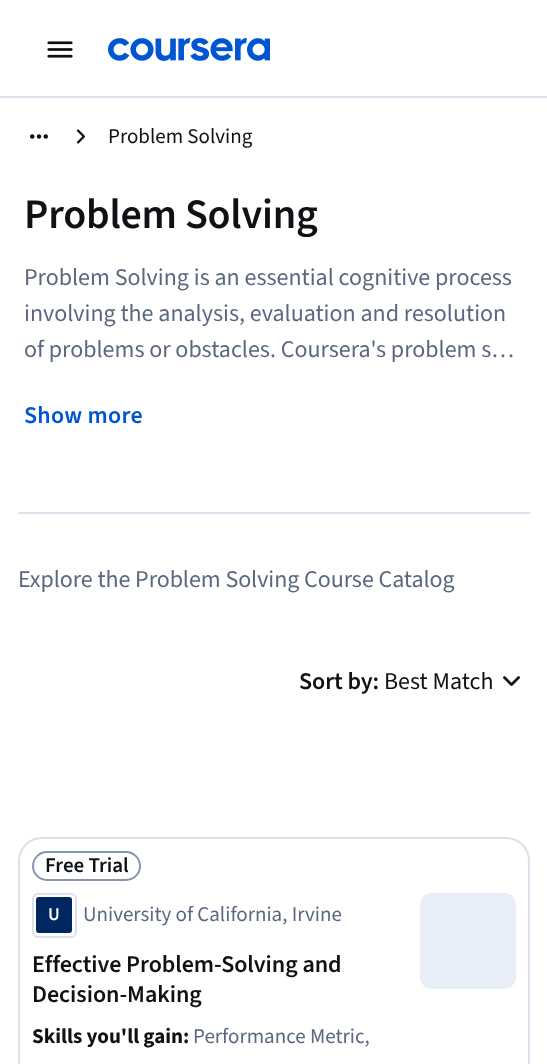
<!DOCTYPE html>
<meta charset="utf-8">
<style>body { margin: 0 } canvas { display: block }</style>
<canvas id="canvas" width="547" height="1064"></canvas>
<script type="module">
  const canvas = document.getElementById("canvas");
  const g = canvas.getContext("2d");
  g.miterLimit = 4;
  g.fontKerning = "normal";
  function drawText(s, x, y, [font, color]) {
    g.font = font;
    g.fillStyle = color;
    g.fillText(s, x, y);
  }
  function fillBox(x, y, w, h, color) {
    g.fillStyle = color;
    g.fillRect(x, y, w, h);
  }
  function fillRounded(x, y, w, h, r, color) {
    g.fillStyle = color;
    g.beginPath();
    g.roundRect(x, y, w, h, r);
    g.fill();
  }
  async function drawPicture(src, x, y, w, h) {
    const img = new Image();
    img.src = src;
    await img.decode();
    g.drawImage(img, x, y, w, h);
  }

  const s1 = ["21px 'Source Sans 3'", "#0F1114"];
  const s2 = ["600 42px 'Source Sans 3'", "#0F1114"];
  const s3 = ["24px 'Source Sans 3'", "#5B6780"];
  const s4 = ["600 24px 'Source Sans 3'", "#0056D2"];
  const s5 = ["600 24px 'Source Sans 3'", "#0F1114"];
  const s6 = ["24px 'Source Sans 3'", "#0F1114"];
  const s7 = ["600 21px 'Source Sans 3'", "#0F1114"];
  const s8 = ["600 18px 'Source Sans 3'", "#FFFFFF"];
  const s9 = ["21px 'Source Sans 3'", "#5B6780"];
  const s10 = ["bold 21px 'Source Sans 3'", "#0F1114"];

  fillBox(0, 0, 547, 1064, "#FFFFFF");
  fillBox(0, 96, 547, 2, "#DAE1ED");
  await drawPicture("pic1.png", 47, 41, 26, 17);
  await drawPicture("pic2.png", 108, 38, 162, 23);
  await drawPicture("pic3.png", 30, 134, 18, 5);
  await drawPicture("pic4.png", 76, 129, 9, 15);
  drawText("Problem Solving", 108, 143, s1);
  g.letterSpacing = "-0.25px";
  drawText("Problem Solving", 24, 228, s2);
  g.letterSpacing = "0px";
  drawText("Problem Solving is an essential cognitive process", 24, 285, s3);
  drawText("involving the analysis, evaluation and resolution", 24, 321, s3);
  drawText("of problems or obstacles. Coursera's problem s…", 24, 357, s3);
  g.letterSpacing = "0.25px";
  drawText("Show more", 24, 423, s4);
  fillBox(18, 512, 512, 2, "#DAE1ED");
  g.letterSpacing = "-0.05px";
  drawText("Explore the Problem Solving Course Catalog", 18, 587, s3);
  drawText("Sort by:", 299, 689, s5);
  g.letterSpacing = "0px";
  drawText("Best Match", 384, 689, s6);
  await drawPicture("pic5.png", 503, 676, 17, 10);
  g.beginPath();
  g.roundRect(19, 838, 510, 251, 23);
  g.strokeStyle = "#DAE1ED";
  g.lineWidth = 2;
  g.stroke();
  g.beginPath();
  g.roundRect(33, 852, 107, 28, 14);
  g.strokeStyle = "#8495B0";
  g.stroke();
  drawText("Free Trial", 45, 872, s7);
  g.beginPath();
  g.roundRect(33, 894, 43, 43, 5);
  g.strokeStyle = "#DAE1ED";
  g.stroke();
  fillRounded(36, 897, 36, 36, 3, "#002761");
  drawText("U", 48, 920, s8);
  drawText("University of California, Irvine", 83, 921, s9);
  g.letterSpacing = "-0.05px";
  drawText("Effective Problem-Solving and", 32, 972, s5);
  drawText("Decision-Making", 32, 1002, s5);
  g.letterSpacing = "0px";
  drawText("Skills you'll gain:", 32, 1043, s10);
  drawText("Performance Metric,", 193, 1043, s9);
  fillRounded(420, 893, 96, 96, 12, "#E8EEF7");
</script>
